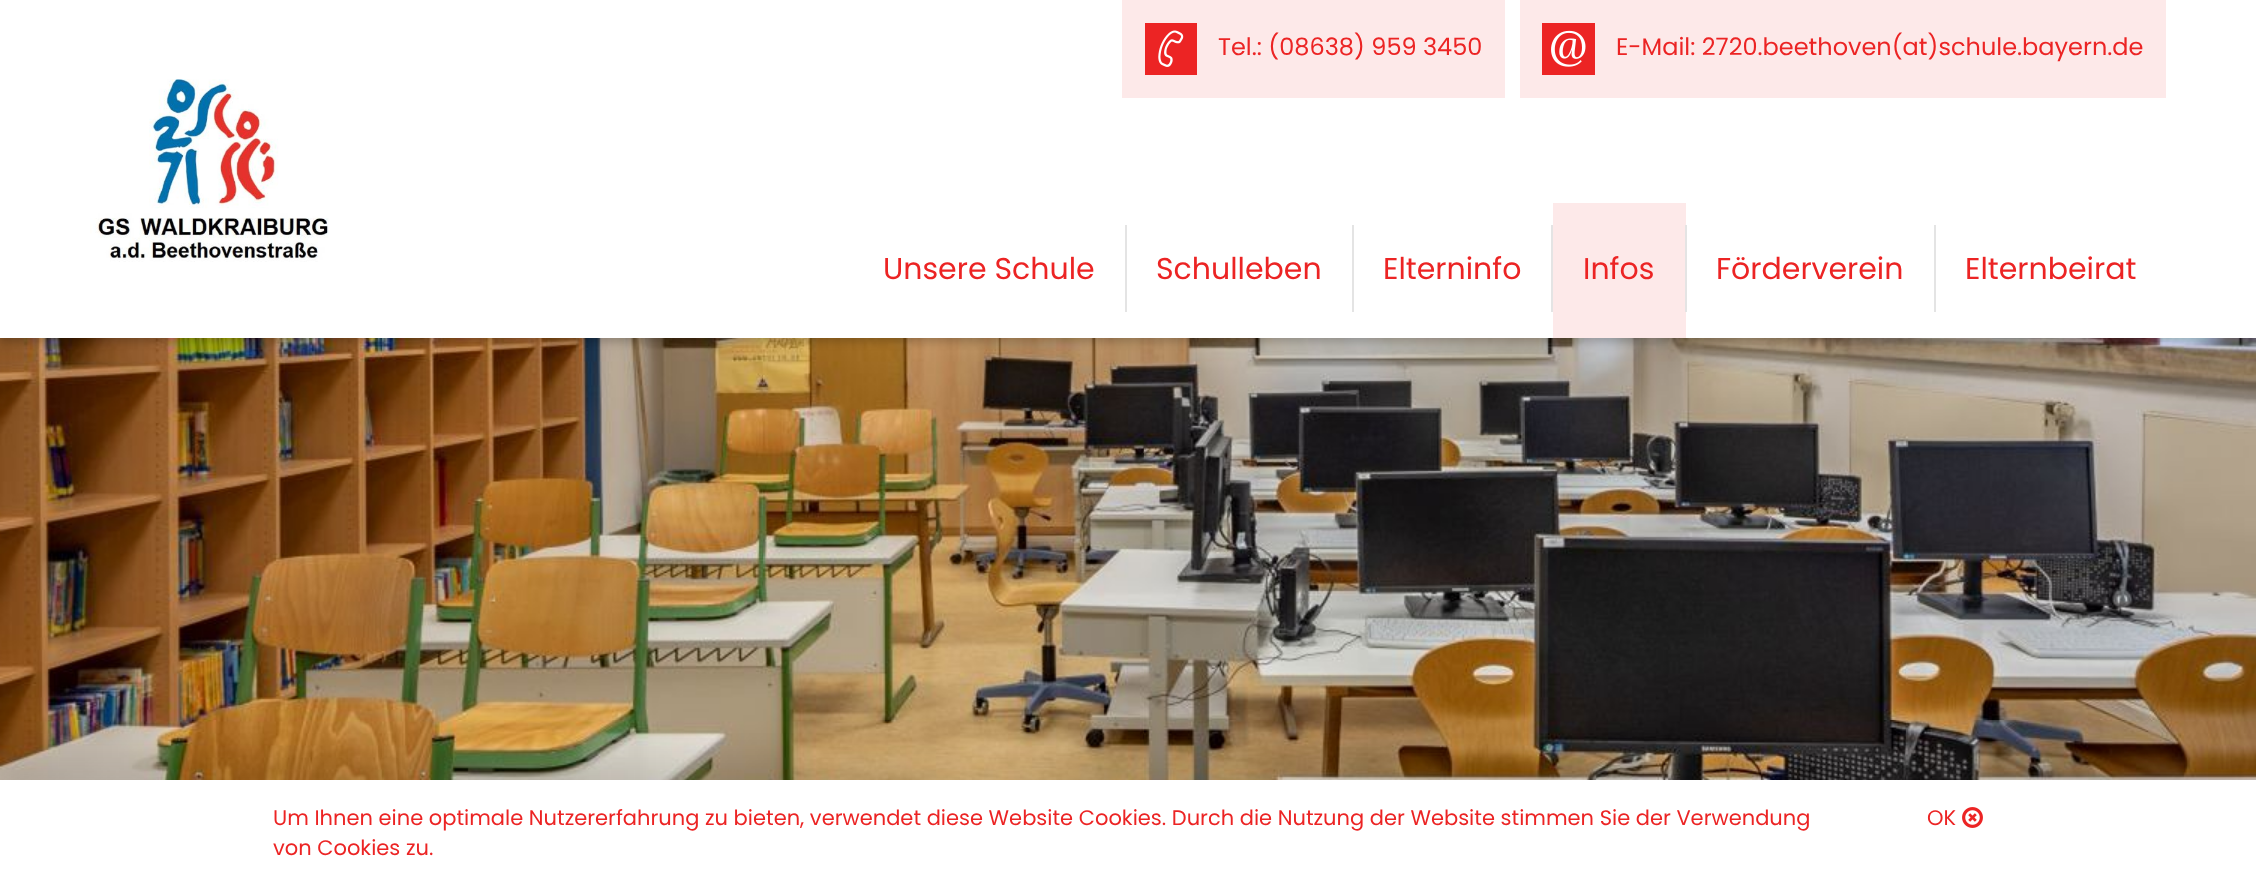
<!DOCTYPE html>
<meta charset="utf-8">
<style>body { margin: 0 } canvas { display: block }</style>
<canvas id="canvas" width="2256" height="884"></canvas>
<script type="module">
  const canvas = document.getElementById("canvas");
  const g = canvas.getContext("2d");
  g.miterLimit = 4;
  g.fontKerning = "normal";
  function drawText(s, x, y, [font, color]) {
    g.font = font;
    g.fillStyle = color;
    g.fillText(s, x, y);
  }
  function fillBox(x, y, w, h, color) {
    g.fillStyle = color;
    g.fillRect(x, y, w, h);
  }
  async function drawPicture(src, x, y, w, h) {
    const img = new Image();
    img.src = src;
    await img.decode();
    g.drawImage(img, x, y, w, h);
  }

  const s1 = ["24px Poppins", "#EC2424"];
  const s2 = ["30px Poppins", "#EC2424"];
  const s3 = ["21px Poppins", "#EC2424"];

  fillBox(0, 0, 2256, 884, "#FFFFFF");
  await drawPicture("pic4.png", 0, 338, 2256, 442);
  g.fillStyle = "rgba(0, 0, 0, 0.2)";
  g.filter = "blur(4.5px)";
  g.beginPath();
  g.rect(0, 5, 2256, 337);
  g.fill();
  g.filter = "none";
  fillBox(0, 0, 2256, 338, "#FFFFFF");
  fillBox(1122, 0, 383, 98, "#FDE9E9");
  fillBox(1145, 23, 52, 52, "#EC2424");
  await drawPicture("pic1.png", 1158, 30, 26, 37);
  drawText("Tel.: (08638) 959 3450", 1218, 55, s1);
  fillBox(1520, 0, 646, 98, "#FDE9E9");
  fillBox(1542, 23, 53, 52, "#EC2424");
  await drawPicture("pic2.png", 1551, 30, 35, 37);
  drawText("E-Mail: 2720.beethoven(at)schule.bayern.de", 1616, 55, s1);
  await drawPicture("pic3.png", 90, 79, 239, 183);
  drawText("Unsere Schule", 883, 279, s2);
  fillBox(1125, 225, 2, 87, "#E4E4E4");
  drawText("Schulleben", 1156, 279, s2);
  fillBox(1352, 225, 2, 87, "#E4E4E4");
  drawText("Elterninfo", 1383, 279, s2);
  fillBox(1551, 225, 2, 87, "#E4E4E4");
  fillBox(1553, 203, 133, 135, "#FDE9E9");
  drawText("Infos", 1583, 279, s2);
  fillBox(1685, 225, 2, 87, "#E4E4E4");
  drawText("Förderverein", 1716, 279, s2);
  fillBox(1934, 225, 2, 87, "#E4E4E4");
  drawText("Elternbeirat", 1965, 279, s2);
  g.fillStyle = "rgba(0, 0, 0, 0.1)";
  g.filter = "blur(16px)";
  g.beginPath();
  g.rect(0, 764, 2256, 105);
  g.fill();
  g.filter = "none";
  fillBox(0, 780, 2256, 104, "#FFFFFF");
  drawText("Um Ihnen eine optimale Nutzererfahrung zu bieten, verwendet diese Website Cookies. Durch die Nutzung der Website stimmen Sie der Verwendung", 273, 825, s3);
  drawText("OK", 1927, 825, s3);
  await drawPicture("pic5.png", 1962, 807, 21, 21);
  drawText("von Cookies zu.", 273, 855, s3);
</script>
